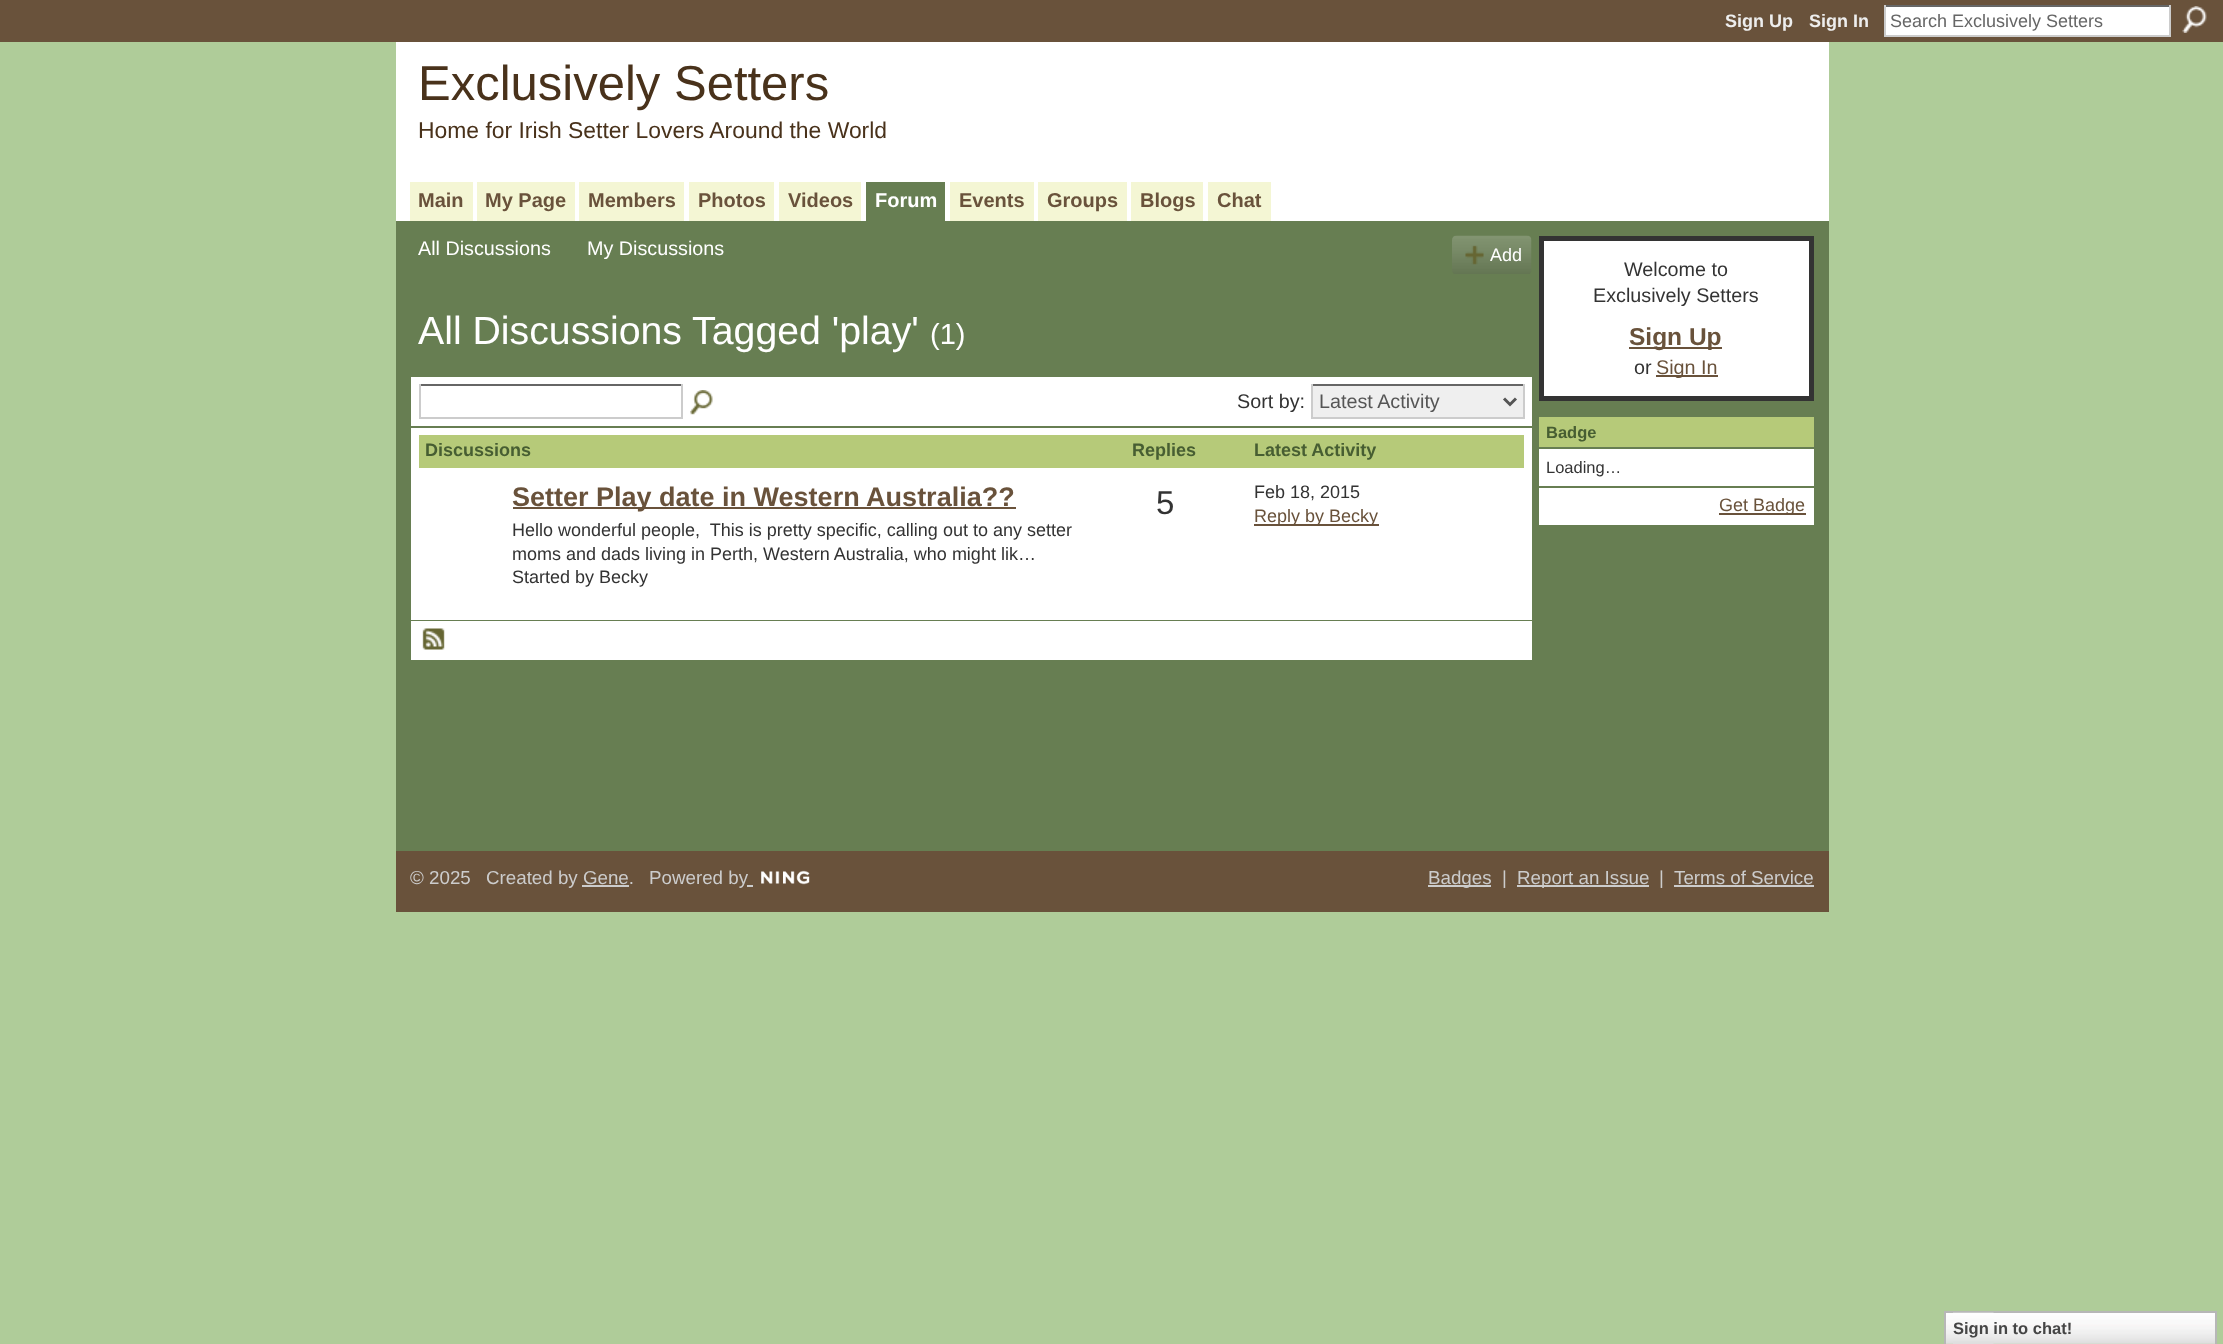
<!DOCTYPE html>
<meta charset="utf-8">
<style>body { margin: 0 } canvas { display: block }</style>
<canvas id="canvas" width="2223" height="1344"></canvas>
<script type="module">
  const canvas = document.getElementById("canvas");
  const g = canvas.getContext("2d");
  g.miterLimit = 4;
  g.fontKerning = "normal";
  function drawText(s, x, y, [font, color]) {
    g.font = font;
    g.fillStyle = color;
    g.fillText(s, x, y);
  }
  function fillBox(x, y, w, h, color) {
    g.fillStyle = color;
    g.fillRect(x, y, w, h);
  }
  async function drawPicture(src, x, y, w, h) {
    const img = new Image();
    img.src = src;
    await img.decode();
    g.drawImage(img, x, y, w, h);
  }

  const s1 = ["bold 18px Liberation Sans", "#EEEEEE"];
  const s2 = ["18px Liberation Sans", "#666666"];
  const s3 = ["49px Liberation Sans", "#49321B"];
  const s4 = ["22.9px Liberation Sans", "#49321B"];
  const s5 = ["bold 20px Liberation Sans", "#69523B"];
  const s6 = ["bold 20px Liberation Sans", "#FFFFFF"];
  const s7 = ["19.75px Liberation Sans", "#FFFFFF"];
  const s8 = ["18px Liberation Sans", "#FFFFFF"];
  const s9 = ["39.25px Liberation Sans", "#FFFFFF"];
  const s10 = ["29px Liberation Sans", "#FFFFFF"];
  const s11 = ["19.75px Liberation Sans", "#333333"];
  const s12 = ["19.75px Liberation Sans", "#555555"];
  const s13 = ["bold 18px Liberation Sans", "#475E32"];
  const s14 = ["bold 27px Liberation Sans", "#69523B"];
  const s15 = ["18px Liberation Sans", "#333333"];
  const s16 = ["33px Liberation Sans", "#333333"];
  const s17 = ["18px Liberation Sans", "#69523B"];
  const s18 = ["bold 24.5px Liberation Sans", "#69523B"];
  const s19 = ["19.75px Liberation Sans", "#69523B"];
  const s20 = ["bold 16.5px Liberation Sans", "#475E32"];
  const s21 = ["16.5px Liberation Sans", "#333333"];
  const s22 = ["18.75px Liberation Sans", "#CCCCCC"];
  const s23 = ["bold 16.5px Liberation Sans", "#454545"];

  fillBox(0, 0, 2223, 1344, "#AFCC99");
  fillBox(0, 0, 2223, 42, "#69523B");
  drawText("Sign Up", 1725, 27, s1);
  drawText("Sign In", 1809, 27, s1);
  fillBox(1886, 7, 283, 28, "#FFFFFF");
  fillBox(1884, 5, 287, 2, "#666666");
  fillBox(2169, 5, 2, 31, "#CCCCCC");
  fillBox(1884, 35, 287, 2, "#CCCCCC");
  fillBox(1884, 5, 2, 31, "#CCCCCC");
  drawText("Search Exclusively Setters", 1890, 27, s2);
  await drawPicture("pic1.png", 2182, 6, 25, 27);
  fillBox(396, 42, 1433, 179, "#FFFFFF");
  drawText("Exclusively Setters", 418, 100, s3);
  drawText("Home for Irish Setter Lovers Around the World", 418, 138, s4);
  fillBox(410, 182, 63, 39, "#F4F6D4");
  drawText("Main", 418, 207, s5);
  fillBox(477, 182, 98, 39, "#F4F6D4");
  drawText("My Page", 485, 207, s5);
  fillBox(579, 182, 105, 39, "#F4F6D4");
  drawText("Members", 588, 207, s5);
  fillBox(689, 182, 85, 39, "#F4F6D4");
  drawText("Photos", 698, 207, s5);
  fillBox(779, 182, 82, 39, "#F4F6D4");
  drawText("Videos", 788, 207, s5);
  fillBox(866, 182, 79, 39, "#677E52");
  drawText("Forum", 875, 207, s6);
  fillBox(950, 182, 84, 39, "#F4F6D4");
  drawText("Events", 959, 207, s5);
  fillBox(1038, 182, 89, 39, "#F4F6D4");
  drawText("Groups", 1047, 207, s5);
  fillBox(1131, 182, 72, 39, "#F4F6D4");
  drawText("Blogs", 1140, 207, s5);
  fillBox(1208, 182, 63, 39, "#F4F6D4");
  drawText("Chat", 1217, 207, s5);
  fillBox(396, 221, 1433, 630, "#677E52");
  drawText("All Discussions", 418, 255, s7);
  drawText("My Discussions", 587, 255, s7);
  await drawPicture("pic2.png", 1452, 235, 80, 39);
  await drawPicture("pic3.png", 1465, 245, 19, 20);
  drawText("Add", 1490, 261, s8);
  drawText("All Discussions Tagged 'play'", 418, 344, s9);
  drawText("(1)", 930, 344, s10);
  fillBox(411, 377, 1121, 49, "#FFFFFF");
  fillBox(419, 384, 264, 2, "#666666");
  fillBox(681, 384, 2, 35, "#CCCCCC");
  fillBox(419, 417, 264, 2, "#CCCCCC");
  fillBox(419, 384, 2, 35, "#CCCCCC");
  await drawPicture("pic4.png", 690, 390, 23, 25);
  drawText("Sort by:", 1237, 408, s11);
  fillBox(1313, 386, 210, 31, "#EFEFEF");
  fillBox(1311, 384, 213, 2, "#666666");
  fillBox(1523, 384, 2, 35, "#CCCCCC");
  fillBox(1311, 417, 213, 2, "#CCCCCC");
  fillBox(1311, 384, 2, 35, "#CCCCCC");
  g.beginPath();
  g.moveTo(1504, 398.5);
  g.lineTo(1510, 404.5);
  g.lineTo(1516, 398.5);
  g.strokeStyle = "#555555";
  g.lineWidth = 3;
  g.stroke();
  drawText("Latest Activity", 1319, 408, s12);
  fillBox(411, 428, 1121, 192, "#FFFFFF");
  fillBox(419, 435, 1105, 33, "#B6CA79");
  drawText("Discussions", 425, 456, s13);
  drawText("Replies", 1132, 456, s13);
  drawText("Latest Activity", 1254, 456, s13);
  fillBox(513, 507, 503, 2, "#69523B");
  drawText("Setter Play date in Western Australia??", 512, 506, s14);
  drawText("Hello wonderful people,  This is pretty specific, calling out to any setter", 512, 536, s15);
  drawText("moms and dads living in Perth, Western Australia, who might lik…", 512, 560, s15);
  drawText("Started by Becky", 512, 583, s15);
  g.letterSpacing = "-2px";
  drawText("5", 1156, 514, s16);
  g.letterSpacing = "0px";
  drawText("Feb 18, 2015", 1254, 498, s15);
  fillBox(1254, 524, 125, 2, "#69523B");
  drawText("Reply by Becky", 1254, 522, s17);
  fillBox(411, 621, 1121, 39, "#FFFFFF");
  await drawPicture("pic5.png", 422, 628, 23, 22);
  g.beginPath();
  g.rect(1541.5, 238.5, 270, 160);
  g.fill();
  g.strokeStyle = "#333333";
  g.lineWidth = 5;
  g.stroke();
  drawText("Welcome to", 1624, 276, s11);
  drawText("Exclusively Setters", 1593, 302, s11);
  fillBox(1629, 347, 93, 2, "#69523B");
  drawText("Sign Up", 1629, 345, s18);
  drawText("or", 1634, 374, s11);
  fillBox(1656, 375, 62, 2, "#69523B");
  drawText("Sign In", 1656, 374, s19);
  fillBox(1539, 417, 275, 30, "#B6CA79");
  g.save();
  g.beginPath();
  g.rect(1547, 422, 49, 21);
  g.clip();
  drawText("Badge", 1546, 438, s20);
  g.restore();
  fillBox(1539, 449, 275, 37, "#FFFFFF");
  drawText("Loading…", 1546, 473, s21);
  fillBox(1539, 488, 275, 37, "#FFFFFF");
  fillBox(1719, 513, 87, 2, "#69523B");
  drawText("Get Badge", 1719, 511, s17);
  fillBox(396, 851, 1433, 61, "#69523B");
  drawText("© 2025", 410, 884, s22);
  drawText("Created by Gene.", 486, 884, s22);
  drawText("Powered by", 649, 884, s22);
  await drawPicture("pic6.png", 761, 870, 49, 15);
  fillBox(582, 885, 47, 2, "#CCCCCC");
  fillBox(747, 885, 6, 2, "#CCCCCC");
  fillBox(1428, 885, 63, 2, "#CCCCCC");
  drawText("Badges", 1428, 884, s22);
  drawText("|", 1502, 884, s22);
  fillBox(1517, 885, 132, 2, "#CCCCCC");
  drawText("Report an Issue", 1517, 884, s22);
  drawText("|", 1659, 884, s22);
  drawText("Terms of Service", 1674, 884, s22);
  fillBox(1674, 885, 140, 2, "#CCCCCC");
  await drawPicture("pic7.png", 1946, 1313, 269, 31);
  g.strokeStyle = "#B7B7B7";
  g.lineWidth = 2;
  g.strokeRect(1945, 1312, 271, 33);
  await drawPicture("pic8.png", 1953, 1312, 41, 32);
  drawText("Sign in to chat!", 1953, 1334, s23);
</script>
